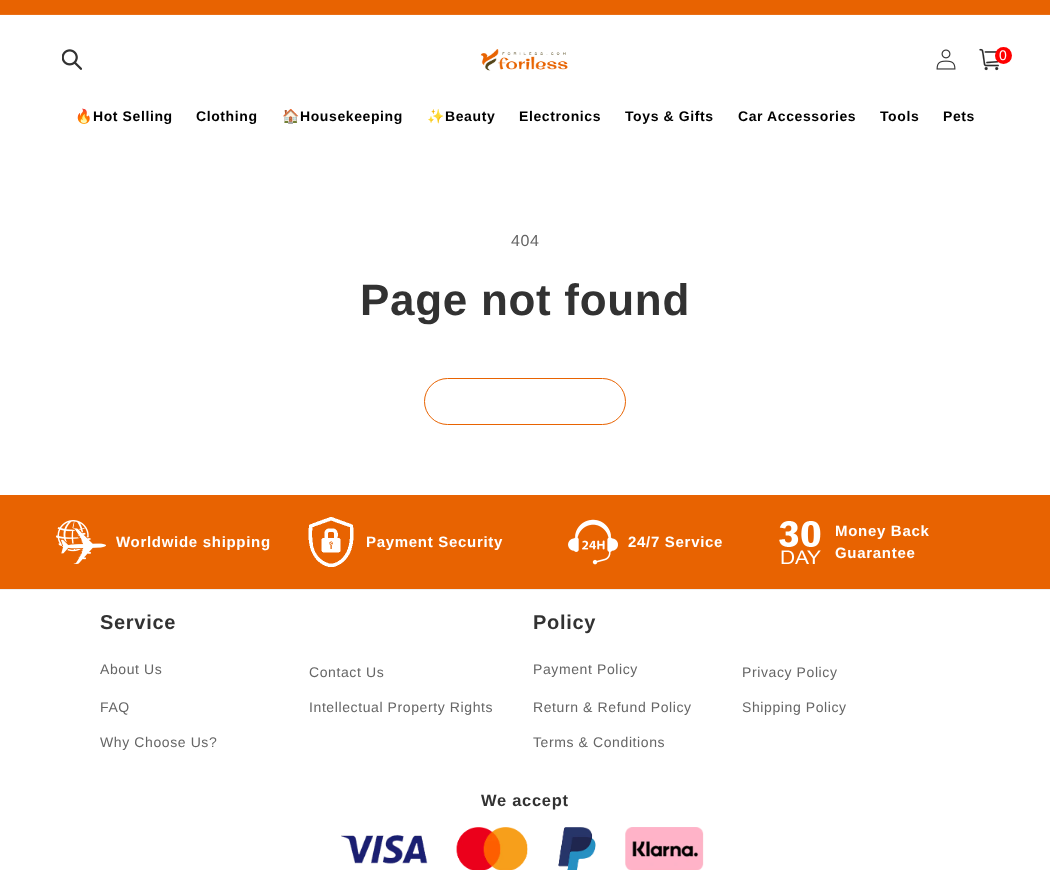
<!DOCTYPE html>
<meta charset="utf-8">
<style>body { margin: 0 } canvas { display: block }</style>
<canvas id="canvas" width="1050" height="870"></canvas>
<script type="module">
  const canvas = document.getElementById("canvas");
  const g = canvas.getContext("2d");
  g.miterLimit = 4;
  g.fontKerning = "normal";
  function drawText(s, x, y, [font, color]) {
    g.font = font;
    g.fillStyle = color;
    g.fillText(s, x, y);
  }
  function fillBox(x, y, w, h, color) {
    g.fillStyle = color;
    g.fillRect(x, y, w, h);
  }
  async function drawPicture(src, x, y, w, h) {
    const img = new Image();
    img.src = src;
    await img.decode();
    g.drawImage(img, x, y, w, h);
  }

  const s1 = ["14px Liberation Sans", "#FFFFFF"];
  const s2 = ["bold 14px Noto Color Emoji", "#000000"];
  const s3 = ["bold 14px Liberation Sans", "#000000"];
  const s4 = ["16px Liberation Sans", "#656565"];
  const s5 = ["bold 44px Liberation Sans", "#323232"];
  const s6 = ["bold 15px Liberation Sans", "#FFFFFF"];
  const s7 = ["bold 20px Liberation Sans", "#323232"];
  const s8 = ["14px Liberation Sans", "#656565"];
  const s9 = ["bold 16.5px Liberation Sans", "#323232"];

  fillBox(0, 0, 1050, 870, "#FFFFFF");
  fillBox(0, 0, 1050, 14, "#E86301");
  fillBox(0, 14, 1050, 1, "#EA6F15");
  await drawPicture("pic1.png", 62, 49, 20, 21);
  await drawPicture("pic2.png", 480, 49, 88, 22);
  await drawPicture("pic3.png", 936, 49, 20, 21);
  await drawPicture("pic4.png", 979, 48, 20, 23);
  g.fillStyle = "#FF0000";
  g.beginPath();
  g.arc(1003.5, 55.5, 8.5, 0, Math.PI * 2);
  g.fill();
  g.letterSpacing = "0.6px";
  drawText("0", 999, 60, s1);
  drawText("🔥", 75, 121, s2);
  drawText("Hot Selling", 93, 121, s3);
  drawText("Clothing", 196, 121, s3);
  drawText("🏠", 282, 121, s2);
  drawText("Housekeeping", 300, 121, s3);
  drawText("✨", 427, 121, s2);
  drawText("Beauty", 445, 121, s3);
  drawText("Electronics", 519, 121, s3);
  drawText("Toys & Gifts", 625, 121, s3);
  drawText("Car Accessories", 738, 121, s3);
  drawText("Tools", 880, 121, s3);
  drawText("Pets", 943, 121, s3);
  drawText("404", 511, 246, s4);
  g.letterSpacing = "0.7px";
  drawText("Page not found", 360, 315, s5);
  g.beginPath();
  g.roundRect(424.5, 378.5, 201, 46, 23);
  g.strokeStyle = "#E86301";
  g.stroke();
  fillBox(0, 495, 1050, 94, "#E86301");
  await drawPicture("pic5.png", 56, 520, 50, 44);
  drawText("Worldwide shipping", 116, 547, s6);
  await drawPicture("pic6.png", 308, 517, 46, 50);
  drawText("Payment Security", 366, 547, s6);
  await drawPicture("pic7.png", 568, 519, 50, 46);
  drawText("24/7 Service", 628, 547, s6);
  await drawPicture("pic8.png", 779, 521, 42, 43);
  drawText("Money Back", 835, 536, s6);
  drawText("Guarantee", 835, 558, s6);
  fillBox(0, 589, 1050, 1, "#EFEFEF");
  drawText("Service", 100, 629, s7);
  g.letterSpacing = "0.6px";
  drawText("About Us", 100, 674, s8);
  drawText("Contact Us", 309, 677, s8);
  drawText("FAQ", 100, 712, s8);
  drawText("Intellectual Property Rights", 309, 712, s8);
  drawText("Why Choose Us?", 100, 747, s8);
  g.letterSpacing = "0.7px";
  drawText("Policy", 533, 629, s7);
  g.letterSpacing = "0.6px";
  drawText("Payment Policy", 533, 674, s8);
  drawText("Privacy Policy", 742, 677, s8);
  drawText("Return & Refund Policy", 533, 712, s8);
  drawText("Shipping Policy", 742, 712, s8);
  drawText("Terms & Conditions", 533, 747, s8);
  g.letterSpacing = "0.7px";
  drawText("We accept", 481, 806, s9);
  await drawPicture("pic9.png", 341, 827, 363, 43);
</script>
